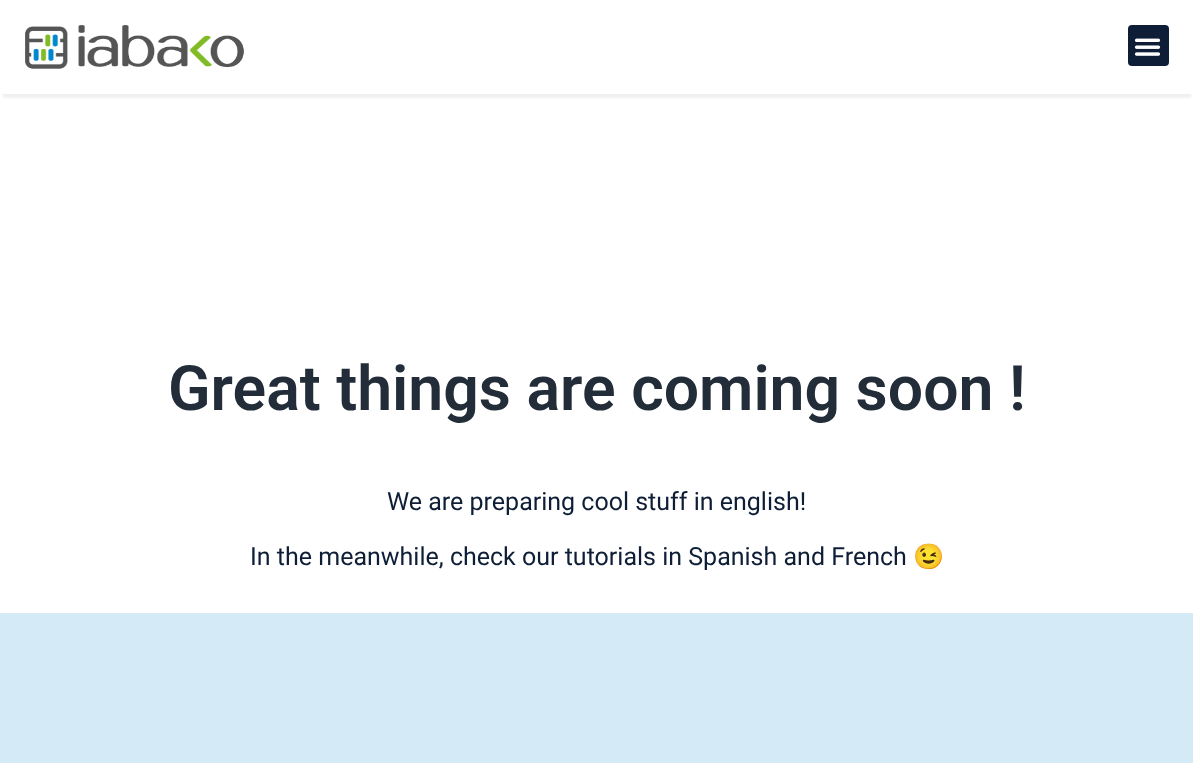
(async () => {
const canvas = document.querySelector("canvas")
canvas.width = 1193
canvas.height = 763
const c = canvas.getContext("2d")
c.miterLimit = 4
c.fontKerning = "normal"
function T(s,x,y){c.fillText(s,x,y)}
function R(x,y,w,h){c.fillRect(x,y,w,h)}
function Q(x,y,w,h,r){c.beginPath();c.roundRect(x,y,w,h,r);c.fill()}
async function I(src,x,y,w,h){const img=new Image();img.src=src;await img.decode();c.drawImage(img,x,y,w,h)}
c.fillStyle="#fff"
R(0,0,1193,763)
c.fillStyle="#eeeeeede"
c.filter="blur(1px)"
c.beginPath()
c.rect(3,9,1188,89)
c.fill()
c.filter="none"
c.fillStyle="#fff"
R(2,8,1190,86)
await I("1.png",25,25,219,44)
c.fillStyle="#0e1e37"
Q(1128,25,41,41,4)
await I("2.png",1134,38,27,18)
c.font="600 62.5px Roboto"
c.fillStyle="#222d39"
T("Great things are coming soon !",168,410)
c.font="25px Roboto"
c.fillStyle="#0e1e37"
T("We are preparing cool stuff in english!",387,510)
T("In the meanwhile, check our tutorials in Spanish and French",250,565)
c.font="25px Noto Color Emoji"
T("😉",913,565)
c.fillStyle="#d4ebf7"
R(0,613,1193,150)
})()
